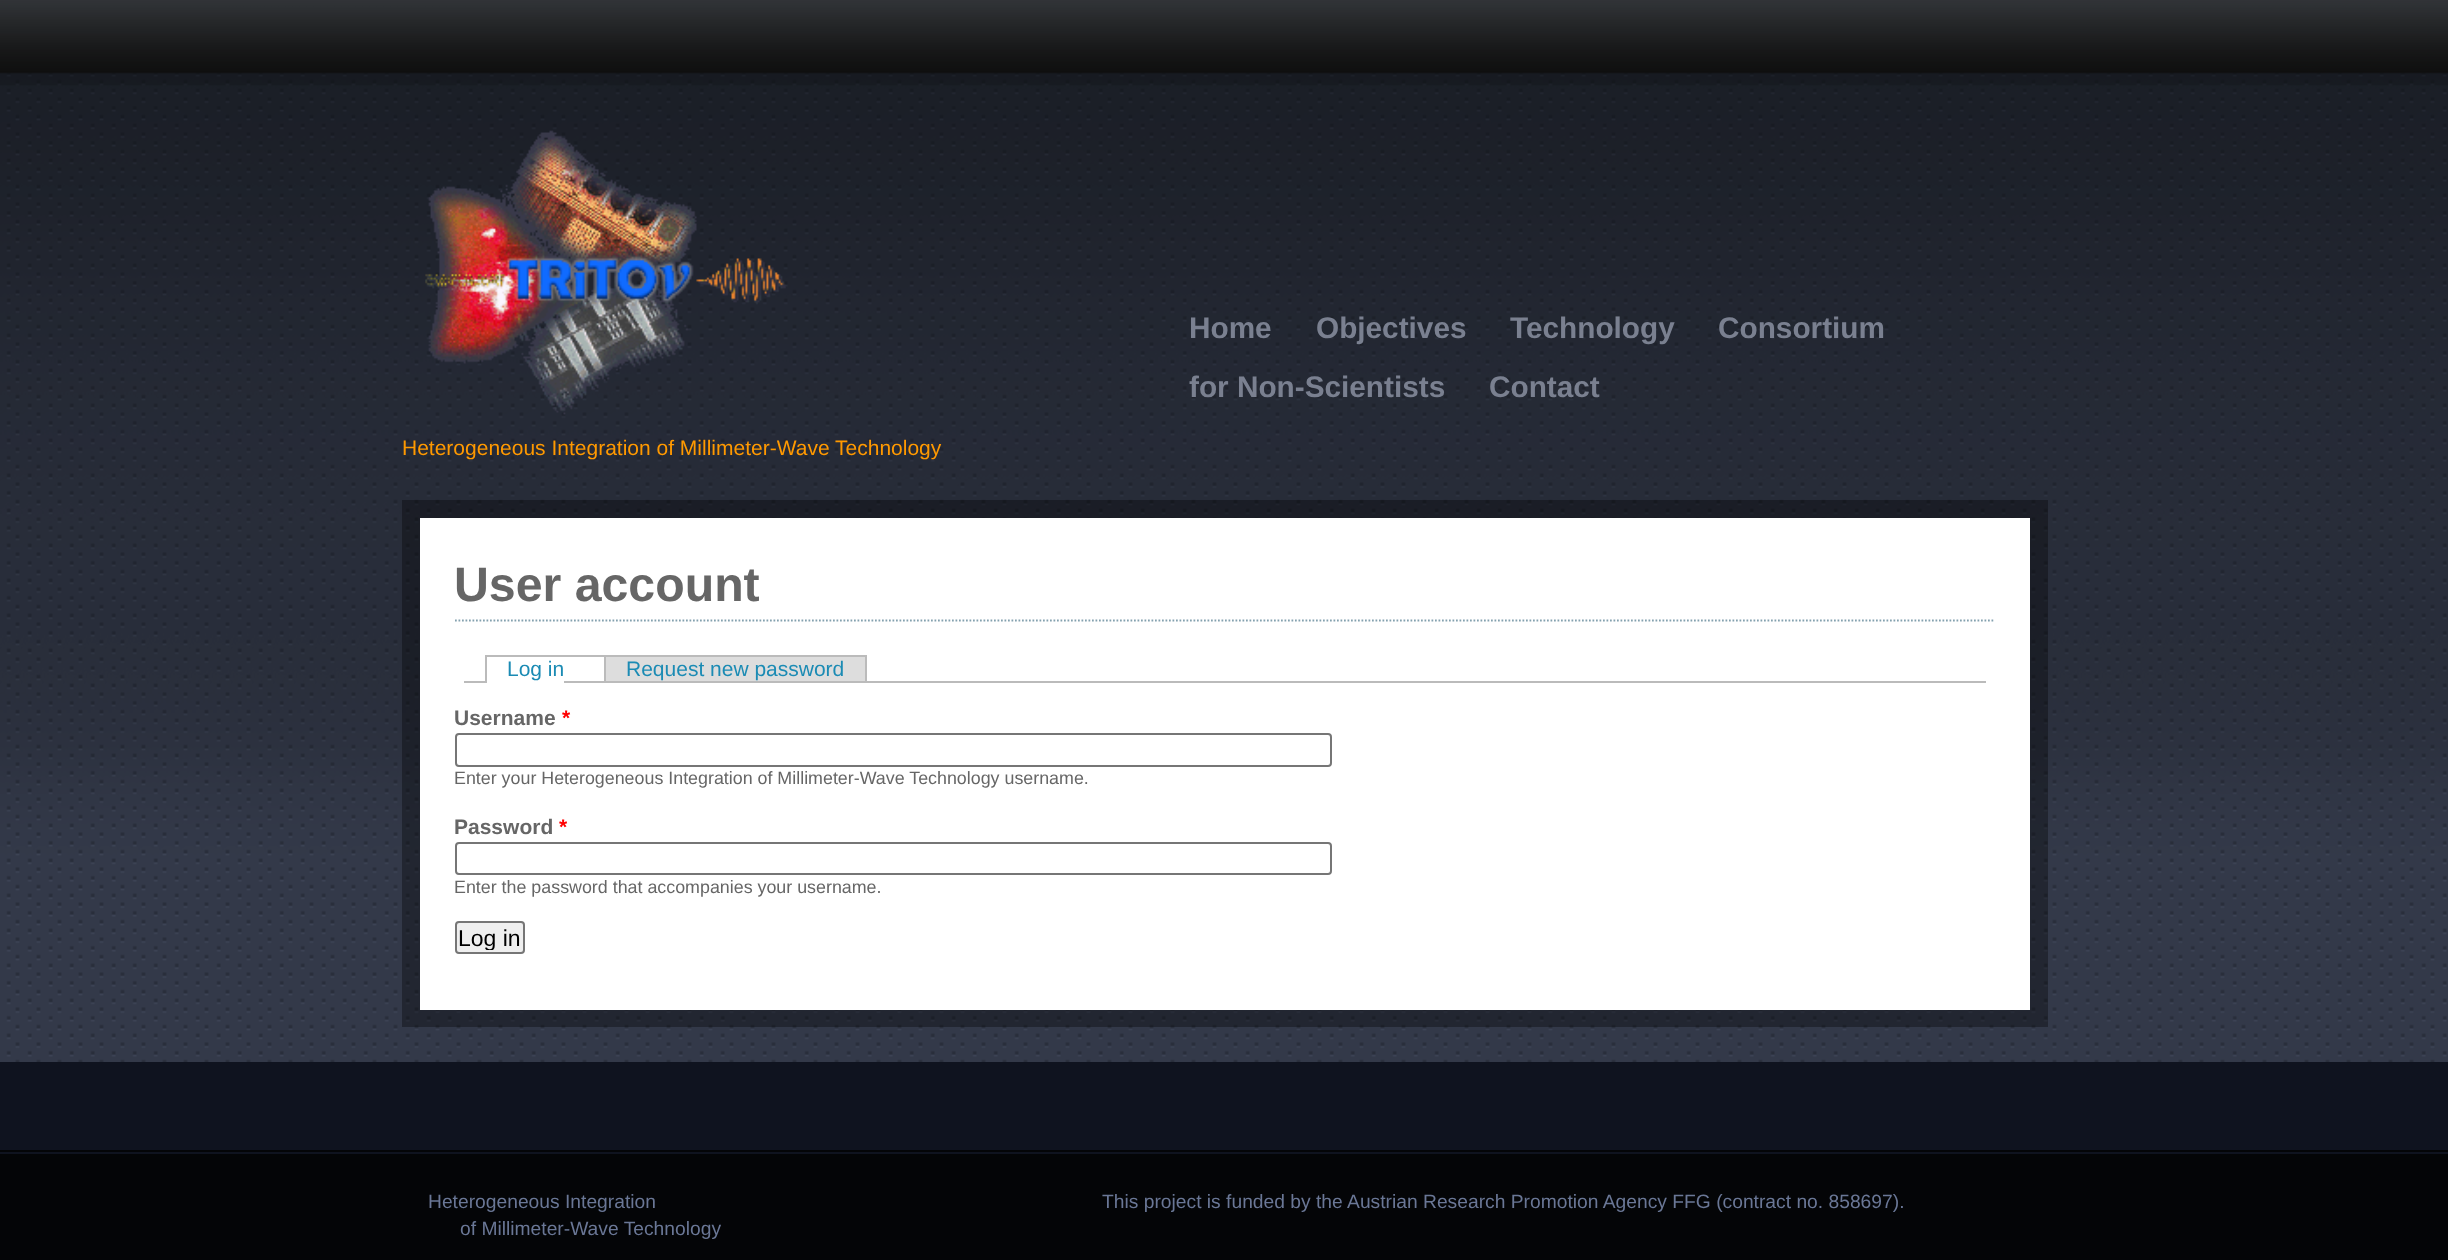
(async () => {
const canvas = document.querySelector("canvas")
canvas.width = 2448
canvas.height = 1260
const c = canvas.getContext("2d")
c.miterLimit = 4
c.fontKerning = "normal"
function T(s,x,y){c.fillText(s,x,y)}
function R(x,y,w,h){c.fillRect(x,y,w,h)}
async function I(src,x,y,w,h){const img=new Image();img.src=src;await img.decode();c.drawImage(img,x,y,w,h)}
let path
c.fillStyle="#fff"
R(0,0,2448,1260)
await I("1.png",0,0,2448,1062)
c.font="bold 29.75px Liberation Sans"
c.fillStyle="#7a8090"
T("Home",1189,338)
T("Objectives",1316,338)
T("Technology",1510,338)
T("Consortium",1718,338)
T("for Non-Scientists",1189,397)
T("Contact",1489,397)
await I("2.png",425,130,361,285)
c.font="21px Liberation Sans"
c.fillStyle="#f90"
T("Heterogeneous Integration of Millimeter-Wave Technology",402,455)
c.fillStyle="#00000052"
R(402,500,1646,527)
c.fillStyle="#fff"
R(420,518,1610,492)
path = new Path2D("M455 620.5h1540")
c.strokeStyle="#84a1af"
c.lineWidth=1.8
c.setLineDash([1.75,1.75])
c.stroke(path)
c.font="bold 48.25px Liberation Sans"
c.fillStyle="#666"
T("User account",454,601)
c.fillStyle="#bbb"
R(464,681,1522,2)
c.font="21px Liberation Sans"
c.fillStyle="#1b8bb4"
T("Log in",507,676)
c.fillStyle="#fff"
R(487,681,77,2)
c.fillStyle="#bbb"
R(485,655,381,2)
R(485,655,2,28)
c.fillStyle="#ddd"
R(606,657,259,24)
c.fillStyle="#1b8bb4"
T("Request new password",626,676)
c.fillStyle="#bbb"
R(865,655,2,26)
R(604,655,2,26)
c.font="bold 21px Liberation Sans"
c.fillStyle="#666"
T("Username",454,725)
c.fillStyle="#f00"
T("*",562,725)
c.beginPath()
c.roundRect(456,734,875,32,3)
c.strokeStyle="#767676"
c.lineWidth=2
c.setLineDash([])
c.stroke()
c.font="17.85px Liberation Sans"
c.fillStyle="#666"
T("Enter your Heterogeneous Integration of Millimeter-Wave Technology username.",454,784)
c.font="bold 21px Liberation Sans"
T("Password",454,834)
c.fillStyle="#f00"
T("*",559,834)
c.beginPath()
c.roundRect(456,843,875,31,3)
c.stroke()
c.font="17.85px Liberation Sans"
c.fillStyle="#666"
T("Enter the password that accompanies your username.",454,893)
c.fillStyle="#efefef"
c.beginPath()
c.roundRect(456,922,68,31,3)
c.fill()
c.stroke()
c.save()
c.beginPath()
c.rect(459,924,63,26)
c.clip()
c.font="23px Liberation Sans"
c.fillStyle="#000"
T("Log in",458,946)
c.restore()
c.fillStyle="#0f131f"
R(0,1062,2448,88)
c.fillStyle="#040507"
R(0,1150,2448,2)
R(0,1154,2448,106)
c.fillStyle="#0f131f"
R(0,1152,2448,2)
c.font="19.25px Liberation Sans"
c.fillStyle="#6a7796"
T("Heterogeneous Integration",428,1208)
T("of Millimeter-Wave Technology",460,1235)
T("This project is funded by the Austrian Research Promotion Agency FFG (contract no. 858697).",1102,1208)
})()
